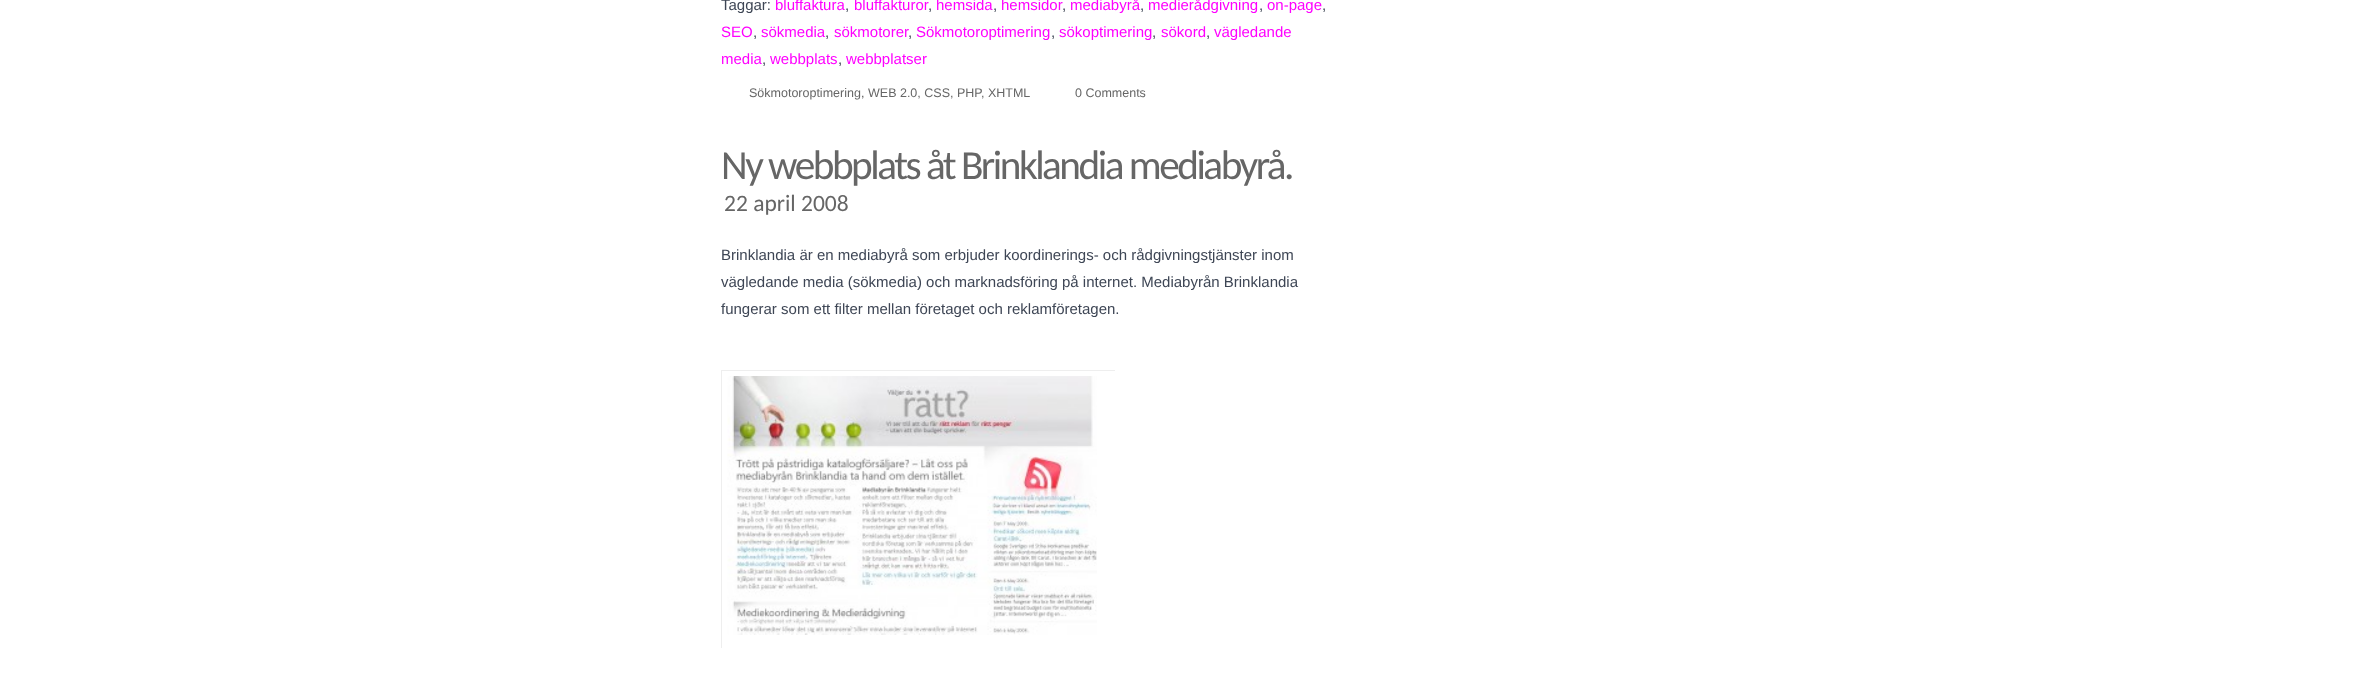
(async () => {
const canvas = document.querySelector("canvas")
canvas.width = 2369
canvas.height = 677
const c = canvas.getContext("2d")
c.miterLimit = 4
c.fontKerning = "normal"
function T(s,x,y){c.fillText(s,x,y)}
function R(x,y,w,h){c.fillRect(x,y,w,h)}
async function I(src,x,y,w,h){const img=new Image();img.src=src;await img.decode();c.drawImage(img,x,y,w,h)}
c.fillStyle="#fff"
R(0,0,2369,677)
c.font="15px Liberation Sans"
c.fillStyle="#3e4655"
T("Taggar:",721,10)
c.fillStyle="#f0f"
T("bluffaktura",775,10)
c.fillStyle="#3e4655"
T(",",845,10)
c.fillStyle="#f0f"
T("bluffakturor",854,10)
c.fillStyle="#3e4655"
T(",",928,10)
c.fillStyle="#f0f"
T("hemsida",936,10)
c.fillStyle="#3e4655"
T(",",993,10)
c.fillStyle="#f0f"
T("hemsidor",1001,10)
c.fillStyle="#3e4655"
T(",",1062,10)
c.fillStyle="#f0f"
T("mediabyrå",1070,10)
c.fillStyle="#3e4655"
T(",",1140,10)
c.fillStyle="#f0f"
T("medierådgivning",1148,10)
c.fillStyle="#3e4655"
T(",",1259,10)
c.fillStyle="#f0f"
T("on-page",1267,10)
c.fillStyle="#3e4655"
T(",",1322,10)
c.fillStyle="#f0f"
T("SEO",721,37)
c.fillStyle="#3e4655"
T(",",753,37)
c.fillStyle="#f0f"
T("sökmedia",761,37)
c.fillStyle="#3e4655"
T(",",825,37)
c.fillStyle="#f0f"
T("sökmotorer",834,37)
c.fillStyle="#3e4655"
T(",",908,37)
c.fillStyle="#f0f"
T("Sökmotoroptimering",916,37)
c.fillStyle="#3e4655"
T(",",1051,37)
c.fillStyle="#f0f"
T("sökoptimering",1059,37)
c.fillStyle="#3e4655"
T(",",1152,37)
c.fillStyle="#f0f"
T("sökord",1161,37)
c.fillStyle="#3e4655"
T(",",1206,37)
c.fillStyle="#f0f"
T("vägledande",1214,37)
T("media",721,64)
c.fillStyle="#3e4655"
T(",",762,64)
c.fillStyle="#f0f"
T("webbplats",770,64)
c.fillStyle="#3e4655"
T(",",838,64)
c.fillStyle="#f0f"
T("webbplatser",846,64)
c.font="12.5px Liberation Sans"
c.fillStyle="#666"
T("Sökmotoroptimering",749,97)
c.fillStyle="#565656"
T(",",861,97)
c.fillStyle="#666"
T("WEB 2.0, CSS, PHP, XHTML",868,97)
T("0 Comments",1075,97)
c.letterSpacing="-2.5px"
c.font="41.25px Carlito"
T("Ny webbplats åt Brinklandia mediabyrå.",721,179)
c.letterSpacing="0px"
c.font="23.5px Carlito"
T("22 april 2008",724,211)
c.font="15px Liberation Sans"
c.fillStyle="#3e4655"
T("Brinklandia är en mediabyrå som erbjuder koordinerings- och rådgivningstjänster inom",721,260)
T("vägledande media (sökmedia) och marknadsföring på internet. Mediabyrån Brinklandia",721,287)
T("fungerar som ett filter mellan företaget och reklamföretagen.",721,314)
c.fillStyle="#eee"
R(721,370,394,1)
R(721,370,1,278)
await I("1.png",727,376,370,259)
})()
